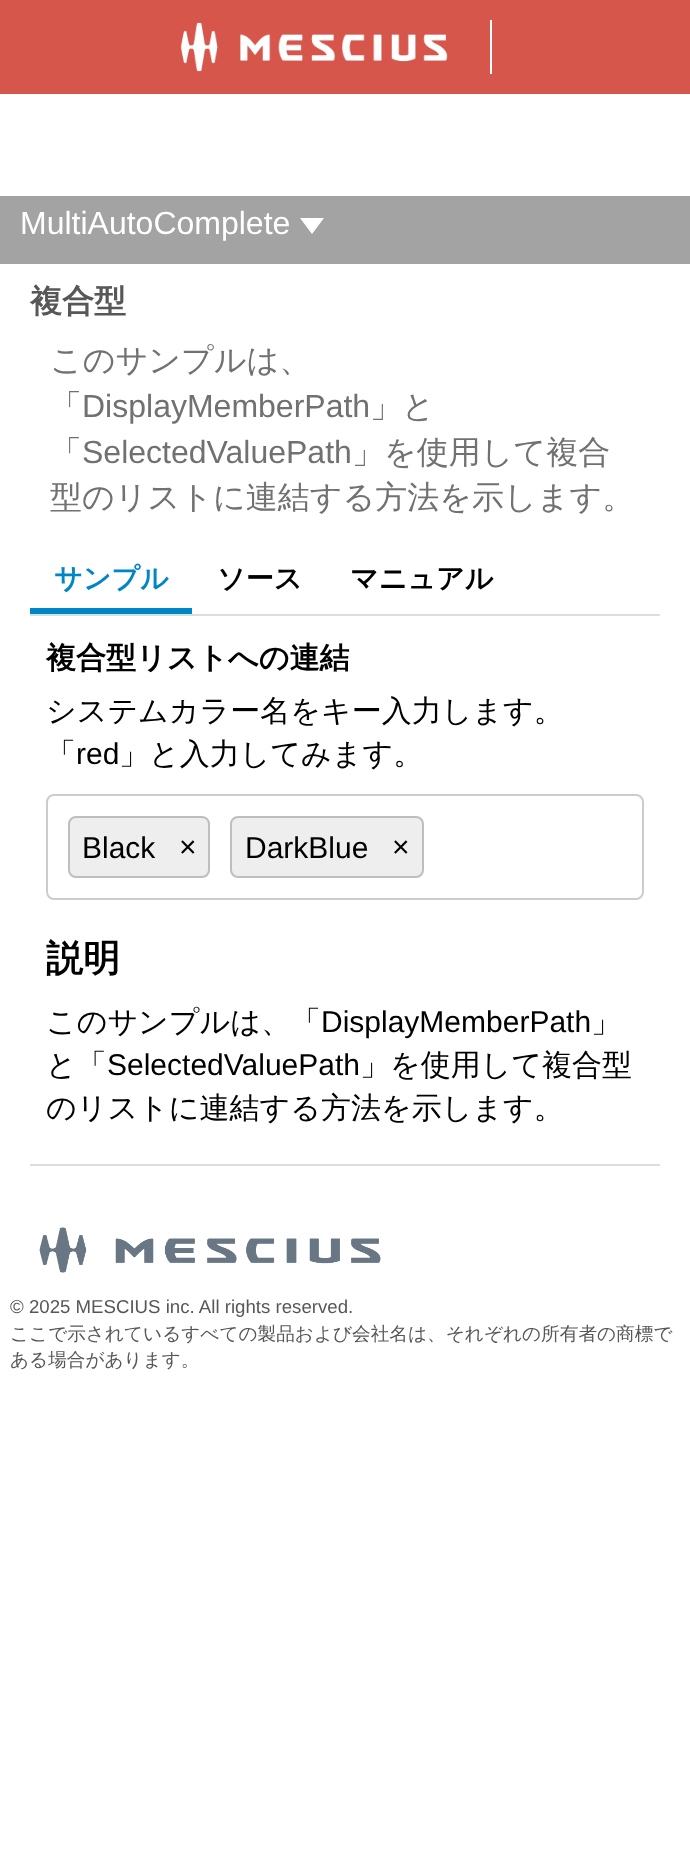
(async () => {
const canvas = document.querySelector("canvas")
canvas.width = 690
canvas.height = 1860
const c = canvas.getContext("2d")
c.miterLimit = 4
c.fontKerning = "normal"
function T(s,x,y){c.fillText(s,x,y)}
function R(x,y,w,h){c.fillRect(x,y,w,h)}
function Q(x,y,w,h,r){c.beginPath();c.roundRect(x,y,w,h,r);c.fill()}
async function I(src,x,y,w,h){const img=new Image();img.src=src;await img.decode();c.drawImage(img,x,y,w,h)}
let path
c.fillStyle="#fff"
R(0,0,690,1860)
c.fillStyle="#d6564c"
R(0,0,690,94)
await I("1.png",180,22,268,50)
c.fillStyle="#fff"
R(490,20,2,54)
c.fillStyle="#a2a3a2"
R(0,196,690,68)
c.font="32px Liberation Sans"
c.fillStyle="#fff"
T("MultiAutoComplete",20,234)
path = new Path2D("M300 218h24l-12 16z")
c.fill(path)
c.font="bold 32px WenQuanYi Zen Hei"
c.fillStyle="#575757"
T("複合型",30,312)
c.font="500 32px WenQuanYi Zen Hei"
c.fillStyle="#717171"
T("このサンプルは、",50,371)
T("「",50,417)
c.font="32px Liberation Sans"
T("DisplayMemberPath",82,417)
c.font="500 32px WenQuanYi Zen Hei"
T("」と",370,417)
T("「",50,463)
c.font="32px Liberation Sans"
T("SelectedValuePath",82,463)
c.font="500 32px WenQuanYi Zen Hei"
T("」を使用して複合",352,463)
T("型のリストに連結する方法を示します。",50,508)
c.fillStyle="#ddd"
R(30,1164,630,2)
c.font="bold 28px WenQuanYi Zen Hei"
c.fillStyle="#0085c7"
T("サンプル",54,588)
R(30,608,162,6)
c.fillStyle="#000"
T("ソース",217,588)
T("マニュアル",350,588)
c.fillStyle="#ddd"
R(30,614,630,2)
c.font="bold 30px WenQuanYi Zen Hei"
c.fillStyle="#000"
T("複合型リストへの連結",46,668)
c.font="500 30px WenQuanYi Zen Hei"
T("システムカラー名をキー入力します。",46,721)
T("「",46,764)
c.font="30px Liberation Sans"
T("red",76,764)
c.font="500 30px WenQuanYi Zen Hei"
T("」と入力してみます。",119,764)
c.beginPath()
c.roundRect(47,795,596,104,7)
c.strokeStyle="#ccc"
c.lineWidth=2
c.stroke()
c.fillStyle="#eee"
Q(68,816,142,62,8)
c.beginPath()
c.roundRect(69,817,140,60,7)
c.strokeStyle="#00000033"
c.stroke()
c.font="30px Liberation Sans"
c.fillStyle="#000"
T("Black",82,858)
T("×",179,857)
c.fillStyle="#eee"
Q(230,816,194,62,8)
c.beginPath()
c.roundRect(231,817,192,60,7)
c.stroke()
c.fillStyle="#000"
T("DarkBlue",245,858)
T("×",392,857)
c.font="bold 37px WenQuanYi Zen Hei"
T("説明",46,971)
c.font="500 30px WenQuanYi Zen Hei"
T("このサンプルは、「",46,1032)
c.font="30px Liberation Sans"
T("DisplayMemberPath",321,1032)
c.font="500 30px WenQuanYi Zen Hei"
T("」",591,1032)
T("と「",46,1075)
c.font="30px Liberation Sans"
T("SelectedValuePath",107,1075)
c.font="500 30px WenQuanYi Zen Hei"
T("」を使用して複合型",360,1075)
T("のリストに連結する方法を示します。",46,1118)
await I("2.png",39,1227,342,46)
c.font="18.65px Liberation Sans"
c.fillStyle="#575757"
T("© 2025 MESCIUS inc. All rights reserved.",10,1313)
c.font="500 18.65px WenQuanYi Zen Hei"
T("ここで示されているすべての製品および会社名は、それぞれの所有者の商標で",10,1340)
T("ある場合があります。",10,1366)
})()
